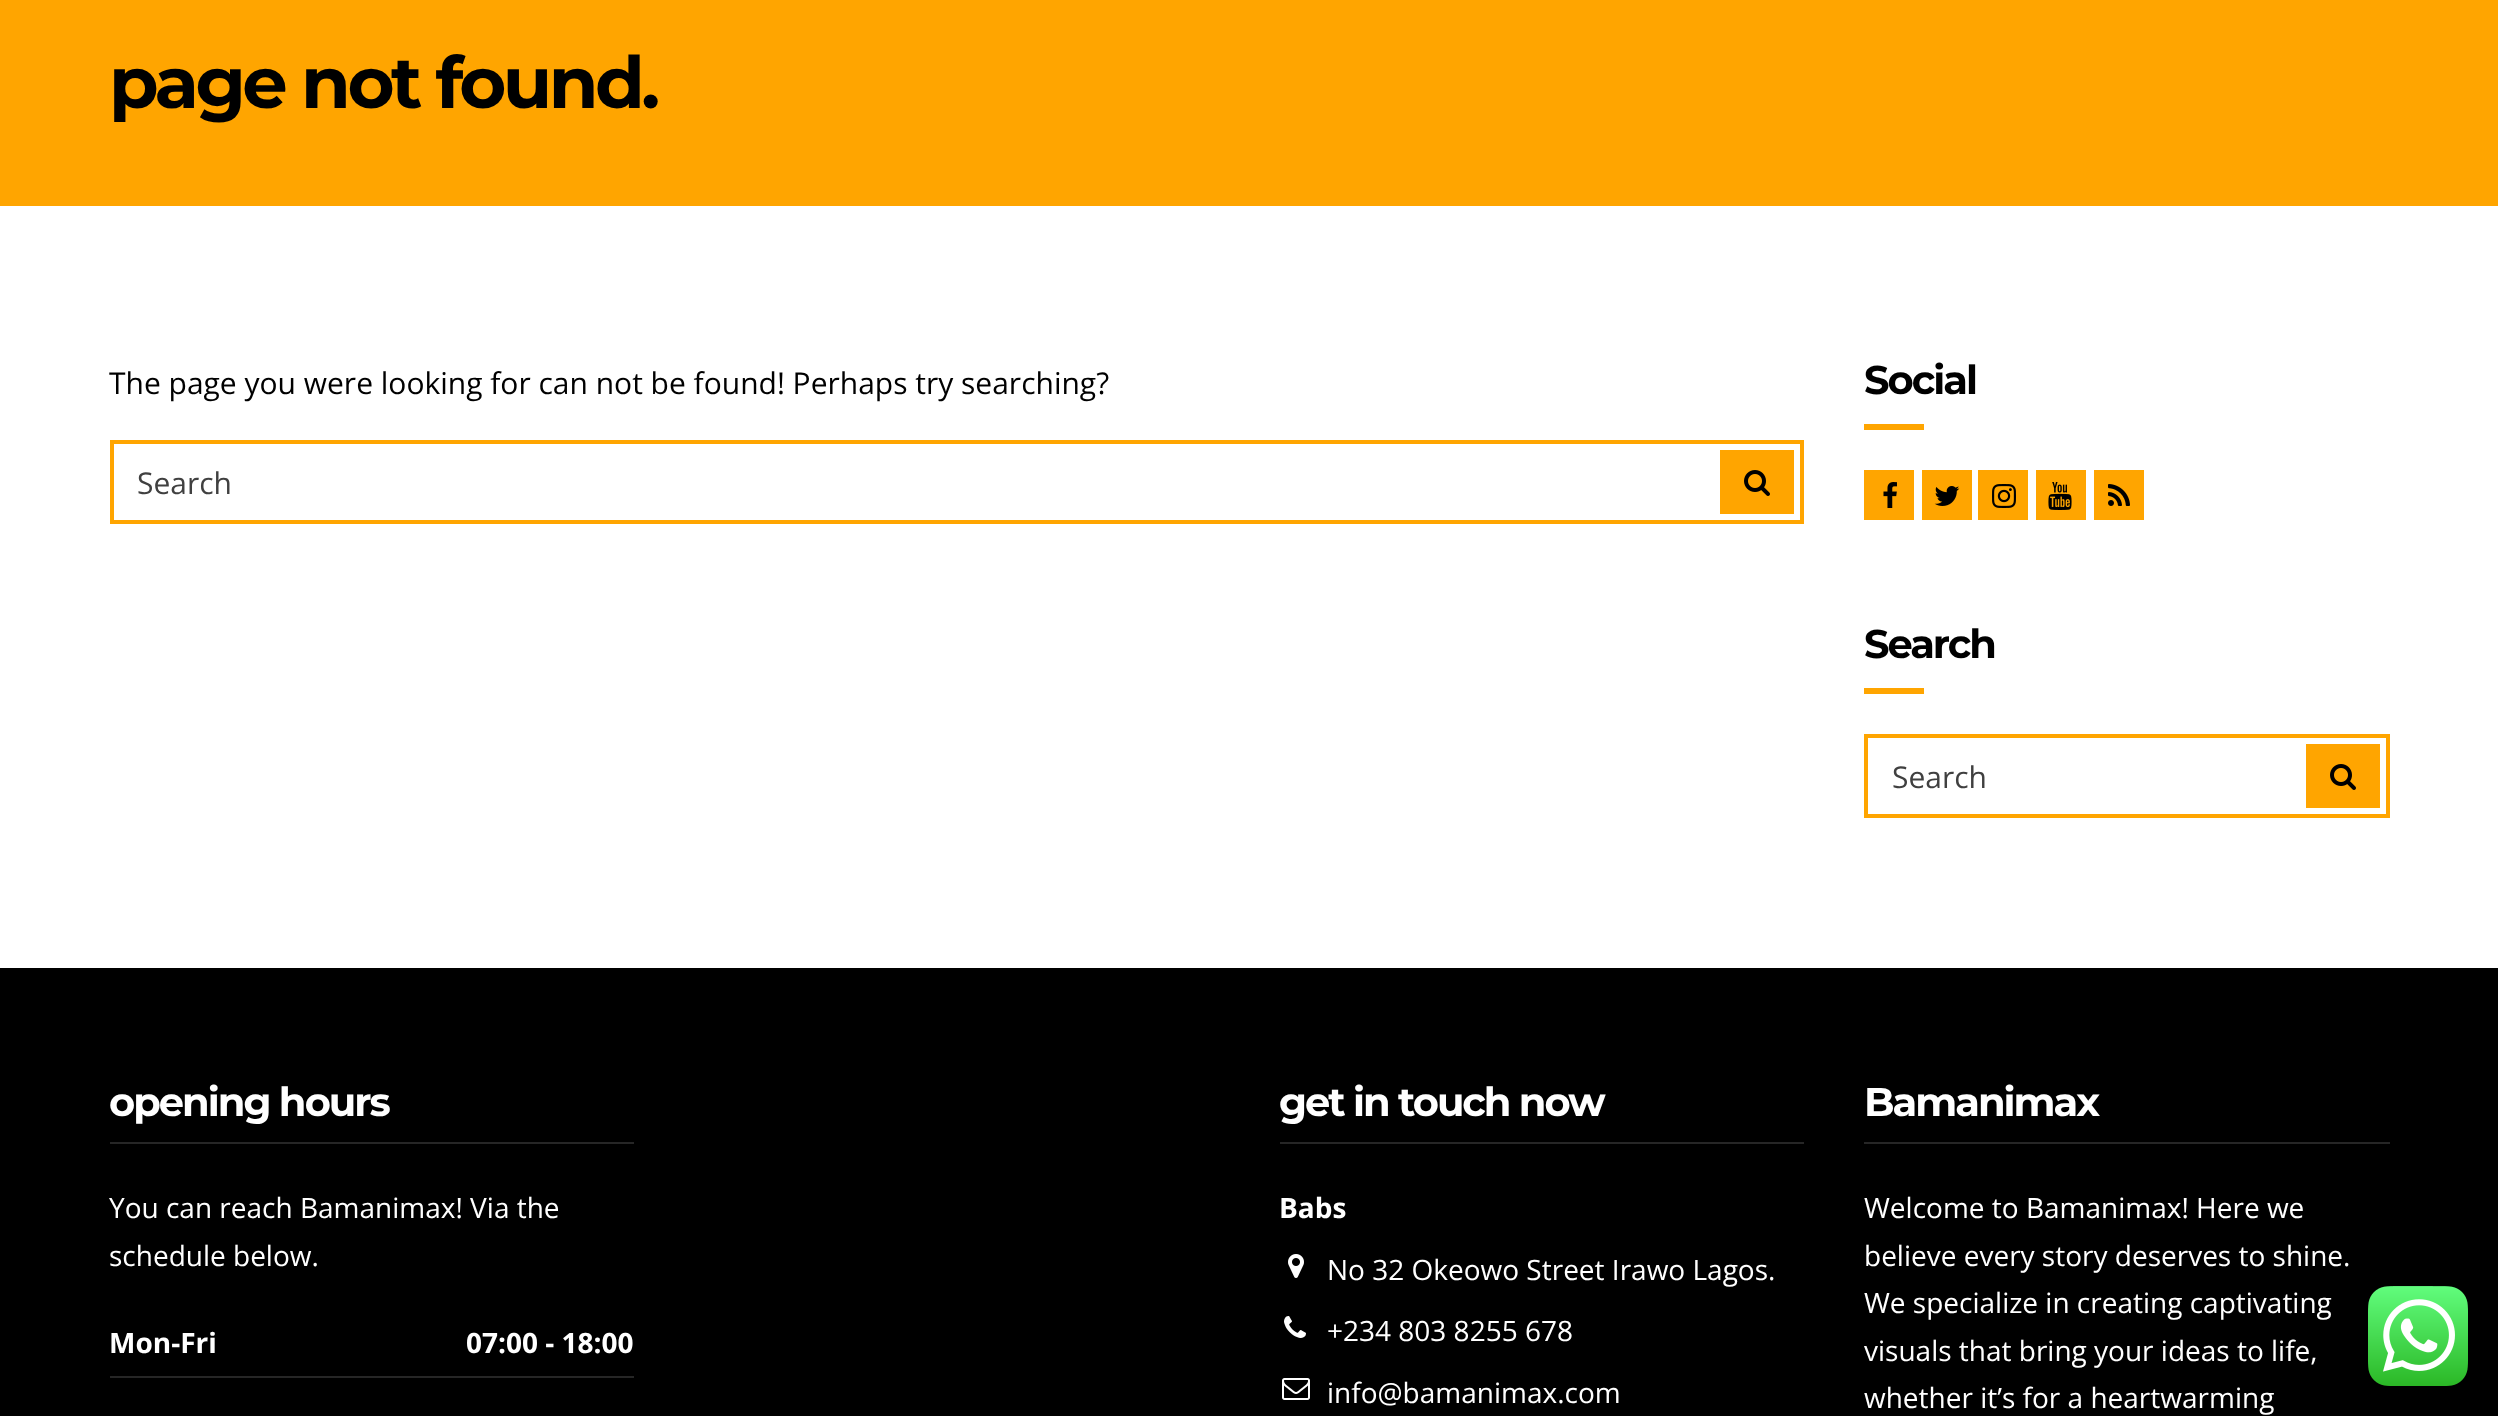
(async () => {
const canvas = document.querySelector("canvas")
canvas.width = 2498
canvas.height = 1416
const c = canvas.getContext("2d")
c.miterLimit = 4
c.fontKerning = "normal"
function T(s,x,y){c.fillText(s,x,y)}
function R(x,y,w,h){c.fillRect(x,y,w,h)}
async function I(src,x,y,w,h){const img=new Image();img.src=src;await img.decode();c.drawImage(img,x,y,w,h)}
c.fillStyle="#fff"
R(0,0,2498,1416)
c.fillStyle="#ffa500"
R(0,0,2498,206)
c.letterSpacing="-3.6px"
c.font="bold 72px Montserrat"
c.fillStyle="#000"
T("page not found.",109,108)
c.letterSpacing="0px"
c.font="30px Open Sans"
T("The page you were looking for can not be found! Perhaps try searching?",109,394)
c.strokeStyle="#ffa500"
c.lineWidth=4
c.strokeRect(112,442,1690,80)
c.fillStyle="#404040"
T("Search",137,494)
c.fillStyle="#ffa500"
R(1720,450,74,64)
await I("1.png",1744,470,26,26)
c.letterSpacing="-2px"
c.font="bold 40px Montserrat"
c.fillStyle="#000"
T("Social",1864,394)
c.fillStyle="#ffa500"
R(1864,424,60,6)
R(1864,470,50,50)
await I("2.png",1883,482,14,26)
R(1922,470,50,50)
await I("3.png",1934,486,26,20)
R(1978,470,50,50)
await I("4.png",1992,484,24,24)
R(2036,470,50,50)
await I("5.png",2048,482,24,28)
R(2094,470,50,50)
await I("6.png",2108,484,22,22)
c.fillStyle="#000"
T("Search",1864,658)
c.fillStyle="#ffa500"
R(1864,688,60,6)
c.strokeRect(1866,736,522,80)
c.letterSpacing="0px"
c.font="30px Open Sans"
c.fillStyle="#404040"
T("Search",1892,788)
c.fillStyle="#ffa500"
R(2306,744,74,64)
await I("1.png",2330,764,26,26)
c.fillStyle="#000"
R(0,968,2498,448)
c.fillStyle="#262626"
R(110,1142,524,2)
c.letterSpacing="-2px"
c.font="bold 40px Montserrat"
c.fillStyle="#fff"
T("opening hours",109,1116)
c.letterSpacing="0px"
c.font="28px Open Sans"
T("You can reach Bamanimax! Via the",109,1218)
T("schedule below.",109,1266)
c.fillStyle="#262626"
R(110,1376,524,2)
c.font="bold 28px Open Sans"
c.fillStyle="#fff"
T("Mon-Fri",109,1353)
T("07:00 - 18:00",466,1353)
c.fillStyle="#262626"
R(1280,1142,524,2)
c.letterSpacing="-2px"
c.font="bold 40px Montserrat"
c.fillStyle="#fff"
T("get in touch now",1279,1116)
c.letterSpacing="0px"
c.font="bold 28px Open Sans"
T("Babs",1279,1218)
await I("7.png",1288,1254,16,24)
c.font="28px Open Sans"
T("No 32 Okeowo Street Irawo Lagos.",1327,1280)
await I("8.png",1284,1316,22,22)
T("+234 803 8255 678",1327,1341)
await I("9.png",1282,1378,28,22)
T("info@bamanimax.com",1327,1403)
c.fillStyle="#262626"
R(1864,1142,526,2)
c.letterSpacing="-2px"
c.font="bold 40px Montserrat"
c.fillStyle="#fff"
T("Bamanimax",1864,1116)
c.letterSpacing="0px"
c.font="28px Open Sans"
T("Welcome to Bamanimax! Here we",1864,1218)
T("believe every story deserves to shine.",1864,1266)
T("We specialize in creating captivating",1864,1313)
T("visuals that bring your ideas to life,",1864,1361)
T("whether it’s for a heartwarming",1864,1408)
await I("10.png",2368,1286,100,100)
})()
